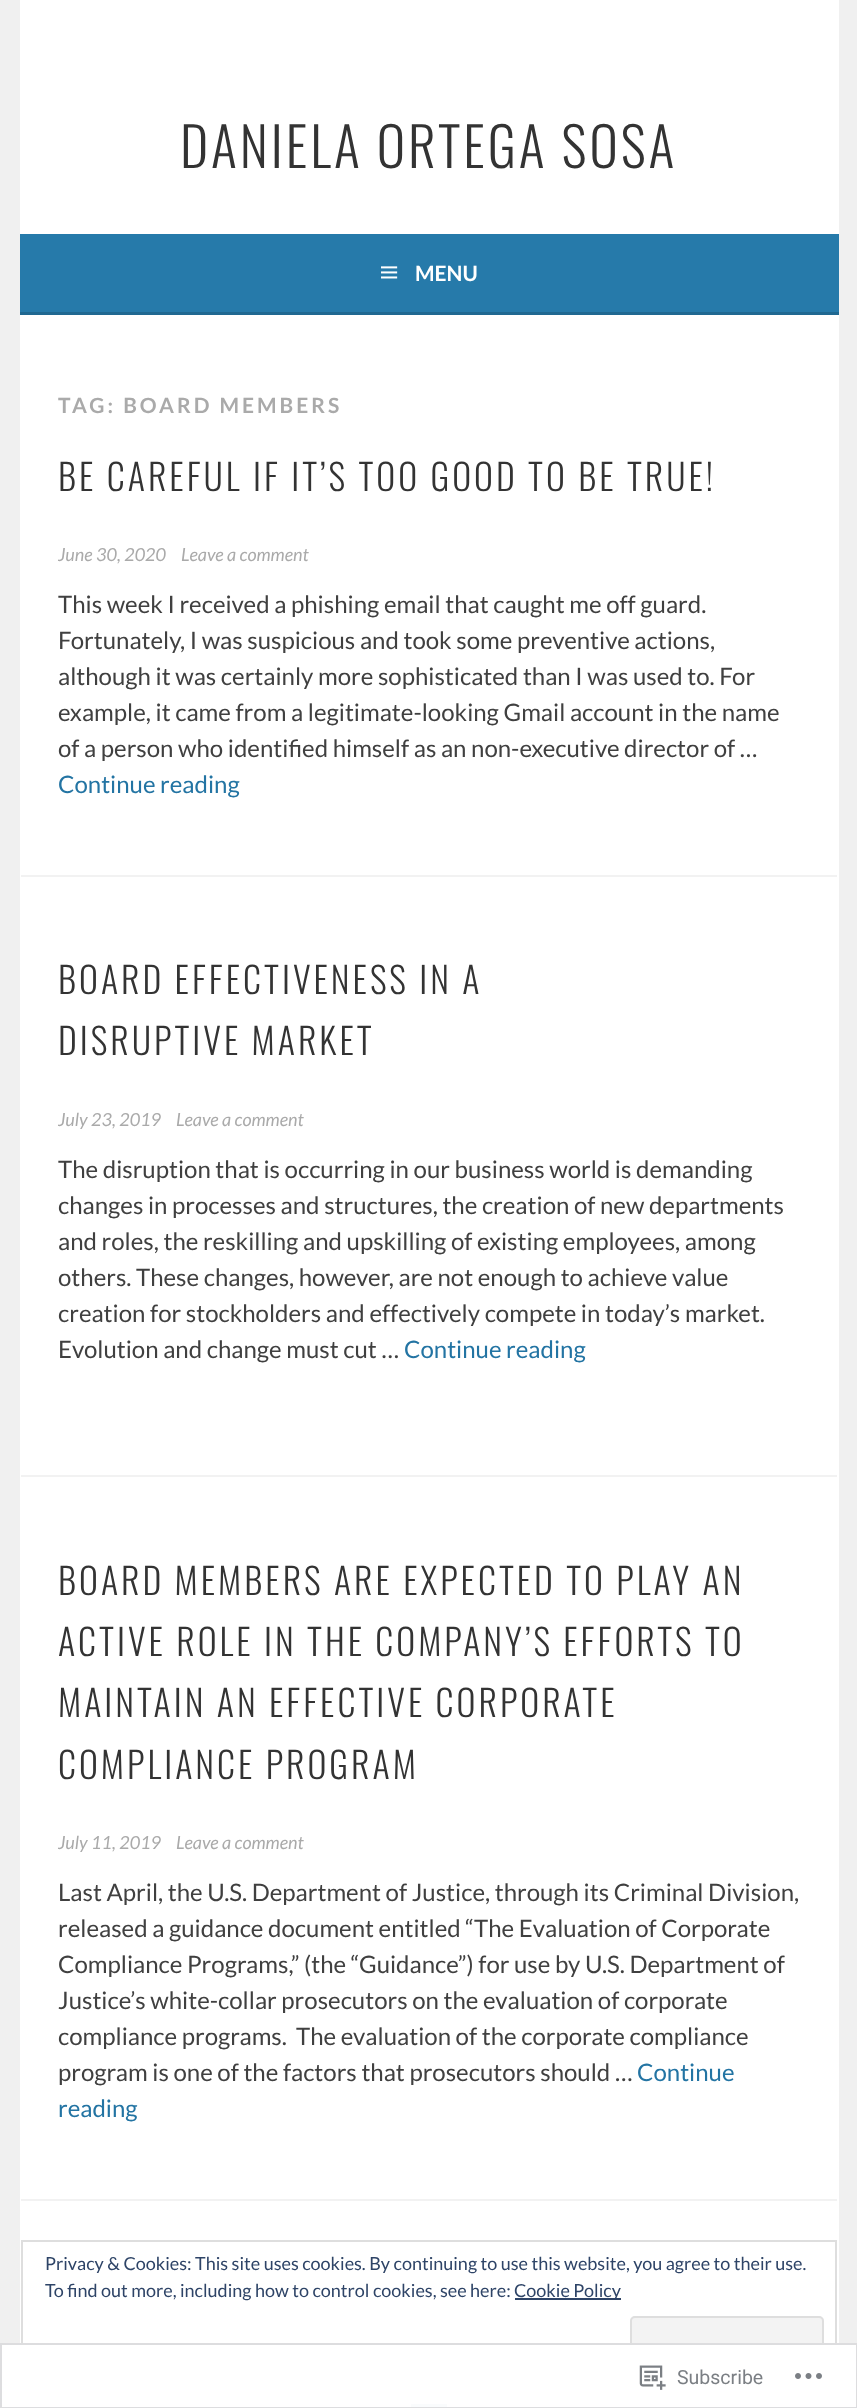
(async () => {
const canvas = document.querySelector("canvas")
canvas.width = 857
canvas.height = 2408
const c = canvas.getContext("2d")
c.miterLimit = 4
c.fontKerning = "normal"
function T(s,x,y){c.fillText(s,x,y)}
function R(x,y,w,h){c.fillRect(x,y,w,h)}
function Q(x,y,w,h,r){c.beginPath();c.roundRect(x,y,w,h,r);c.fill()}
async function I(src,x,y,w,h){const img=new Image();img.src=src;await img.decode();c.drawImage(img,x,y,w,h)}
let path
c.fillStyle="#f0f0f0"
R(0,0,857,2408)
c.fillStyle="#fff"
R(20,0,819,234)
c.letterSpacing="3px"
c.font="300 54px Oswald"
c.fillStyle="#333"
T("DANIELA ORTEGA SOSA",180,168)
c.fillStyle="#267aaa"
R(20,234,819,78)
c.fillStyle="#206891"
R(20,312,819,3)
await I("1.png",381,266,17,13)
c.letterSpacing="0px"
c.font="bold 21px Lato"
c.fillStyle="#fff"
T("MENU",415,281)
R(20,315,819,2093)
c.letterSpacing="3px"
c.fillStyle="#aaa"
T("TAG: BOARD MEMBERS",58,413)
c.font="300 36px Oswald"
c.fillStyle="#333"
T("BE CAREFUL IF IT’S TOO GOOD TO BE TRUE!",58,491)
c.letterSpacing="0px"
c.font="italic 18px Lato"
c.fillStyle="#aaa"
T("June 30, 2020",58,561)
T("Leave a comment",181,561)
c.font="24px Lato"
c.fillStyle="#404040"
T("This week I received a phishing email that caught me off guard.",58,613)
T("Fortunately, I was suspicious and took some preventive actions,",58,649)
T("although it was certainly more sophisticated than I was used to. For",58,685)
T("example, it came from a legitimate-looking Gmail account in the name",58,721)
T("of a person who identified himself as an non-executive director of …",58,757)
c.fillStyle="#2374a3"
T("Continue reading",58,793)
c.fillStyle="#f2f2f2"
R(21,875,816,2)
c.letterSpacing="3px"
c.font="300 36px Oswald"
c.fillStyle="#333"
T("BOARD EFFECTIVENESS IN A",58,994)
T("DISRUPTIVE MARKET",58,1055)
c.letterSpacing="0px"
c.font="italic 18px Lato"
c.fillStyle="#aaa"
T("July 23, 2019",58,1126)
T("Leave a comment",176,1126)
c.font="24px Lato"
c.fillStyle="#404040"
T("The disruption that is occurring in our business world is demanding",58,1178)
T("changes in processes and structures, the creation of new departments",58,1214)
T("and roles, the reskilling and upskilling of existing employees, among",58,1250)
T("others. These changes, however, are not enough to achieve value",58,1286)
T("creation for stockholders and effectively compete in today’s market.",58,1322)
T("Evolution and change must cut …",58,1358)
c.fillStyle="#2374a3"
T("Continue reading",404,1358)
c.fillStyle="#f2f2f2"
R(21,1475,816,2)
c.letterSpacing="3px"
c.font="300 36px Oswald"
c.fillStyle="#333"
T("BOARD MEMBERS ARE EXPECTED TO PLAY AN",58,1595)
T("ACTIVE ROLE IN THE COMPANY’S EFFORTS TO",58,1656)
T("MAINTAIN AN EFFECTIVE CORPORATE",58,1717)
T("COMPLIANCE PROGRAM",58,1779)
c.letterSpacing="0px"
c.font="italic 18px Lato"
c.fillStyle="#aaa"
T("July 11, 2019",58,1849)
T("Leave a comment",176,1849)
c.font="24px Lato"
c.fillStyle="#404040"
T("Last April, the U.S. Department of Justice, through its Criminal Division,",58,1901)
T("released a guidance document entitled “The Evaluation of Corporate",58,1937)
T("Compliance Programs,” (the “Guidance”) for use by U.S. Department of",58,1973)
T("Justice’s white-collar prosecutors on the evaluation of corporate",58,2009)
T("compliance programs.  The evaluation of the corporate compliance",58,2045)
T("program is one of the factors that prosecutors should …",58,2081)
c.fillStyle="#2374a3"
T("Continue",637,2081)
T("reading",58,2117)
c.fillStyle="#f2f2f2"
R(21,2199,816,2)
c.fillStyle="#2374a3"
R(411,2404,36,4)
c.strokeStyle="#dedede"
c.lineWidth=2
c.strokeRect(22,2241,814,146)
c.font="18px Lato"
c.fillStyle="#2e4467"
T("Privacy & Cookies: This site uses cookies. By continuing to use this website, you agree to their use.",45,2270)
T("To find out more, including how to control cookies, see here:",45,2297)
R(515,2298,106,2)
T("Cookie Policy",514,2297)
c.fillStyle="#f3f3f3"
Q(630,2316,194,59,5)
c.fillStyle="#dbdbdb"
path = new Path2D("M632 2367v3c0 2 1 3 3 3h184c2 0 3-1 3-3v-3c0 2-1 3-3 3h-186v-1z")
c.fill(path)
c.beginPath()
c.roundRect(631,2317,192,57,4)
c.stroke()
c.fillStyle="#fffffffa"
R(0,2343,857,65)
c.strokeStyle="#dcdcdefa"
c.strokeRect(1,2344,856,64)
await I("2.png",639,2365,27,25)
c.font="19.5px Roboto"
c.fillStyle="#7b7f84"
T("Subscribe",677,2384)
await I("3.png",795,2373,27,6)
})()
